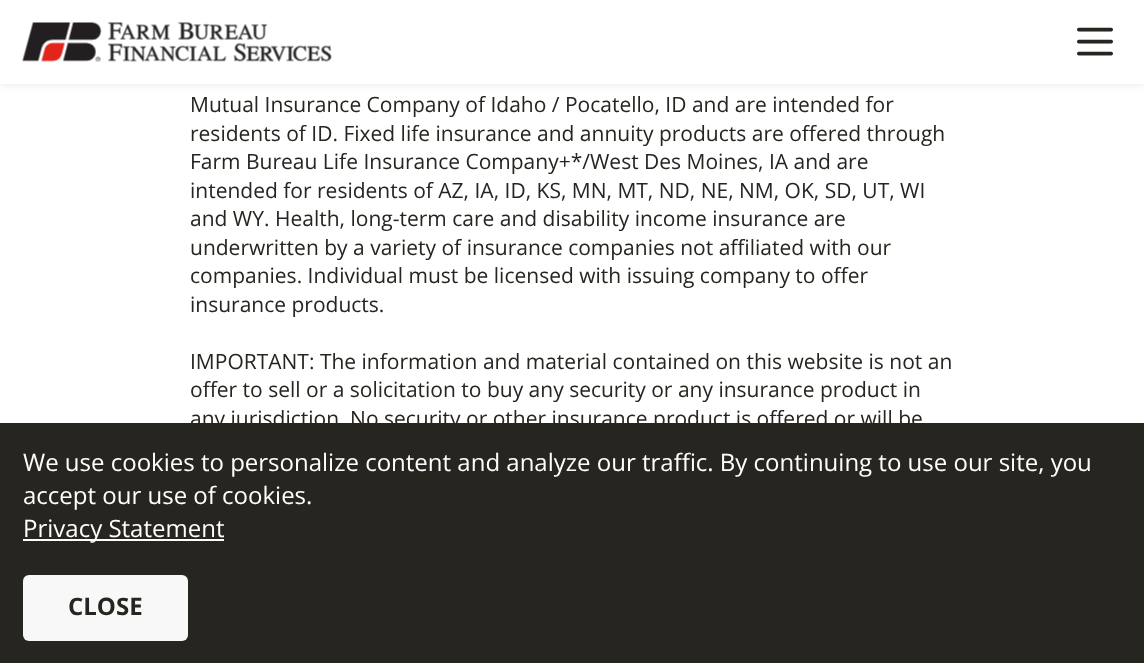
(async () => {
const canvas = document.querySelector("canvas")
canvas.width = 1144
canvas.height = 663
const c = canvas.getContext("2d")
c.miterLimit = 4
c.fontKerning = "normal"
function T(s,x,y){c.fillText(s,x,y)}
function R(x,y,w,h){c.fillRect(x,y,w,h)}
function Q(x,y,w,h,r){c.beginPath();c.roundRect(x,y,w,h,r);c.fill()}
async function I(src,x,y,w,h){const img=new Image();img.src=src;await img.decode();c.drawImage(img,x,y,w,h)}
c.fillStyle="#fff"
R(0,0,1144,663)
c.font="21px Open Sans"
c.fillStyle="#27251f"
T("Mutual Insurance Company of Idaho / Pocatello, ID and are intended for",190,112)
T("residents of ID. Fixed life insurance and annuity products are offered through",190,141)
T("Farm Bureau Life Insurance Company+*/West Des Moines, IA and are",190,169)
T("intended for residents of AZ, IA, ID, KS, MN, MT, ND, NE, NM, OK, SD, UT, WI",190,198)
T("and WY. Health, long-term care and disability income insurance are",190,226)
T("underwritten by a variety of insurance companies not affiliated with our",190,255)
T("companies. Individual must be licensed with issuing company to offer",190,283)
T("insurance products.",190,312)
T("IMPORTANT: The information and material contained on this website is not an",190,369)
T("offer to sell or a solicitation to buy any security or any insurance product in",190,397)
T("any jurisdiction. No security or other insurance product is offered or will be",190,426)
c.fillStyle="#0000000d"
c.filter="blur(3px)"
c.beginPath()
c.rect(0,3,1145,84)
c.fill()
c.filter="none"
c.fillStyle="#fff"
R(0,0,1144,84)
await I("1.png",22,22,310,40)
await I("2.png",1077,27,36,29)
c.fillStyle="#27251f"
R(0,423,1144,240)
c.font="24px Open Sans"
c.fillStyle="#fff"
T("We use cookies to personalize content and analyze our traffic. By continuing to use our site, you",23,471)
T("accept our use of cookies.",23,504)
R(23,539,201,2)
T("Privacy Statement",23,537)
c.fillStyle="#f8f8f8"
Q(23,575,165,66,6)
c.font="bold 24px Open Sans"
c.fillStyle="#27251f"
T("CLOSE",68,615)
})()
